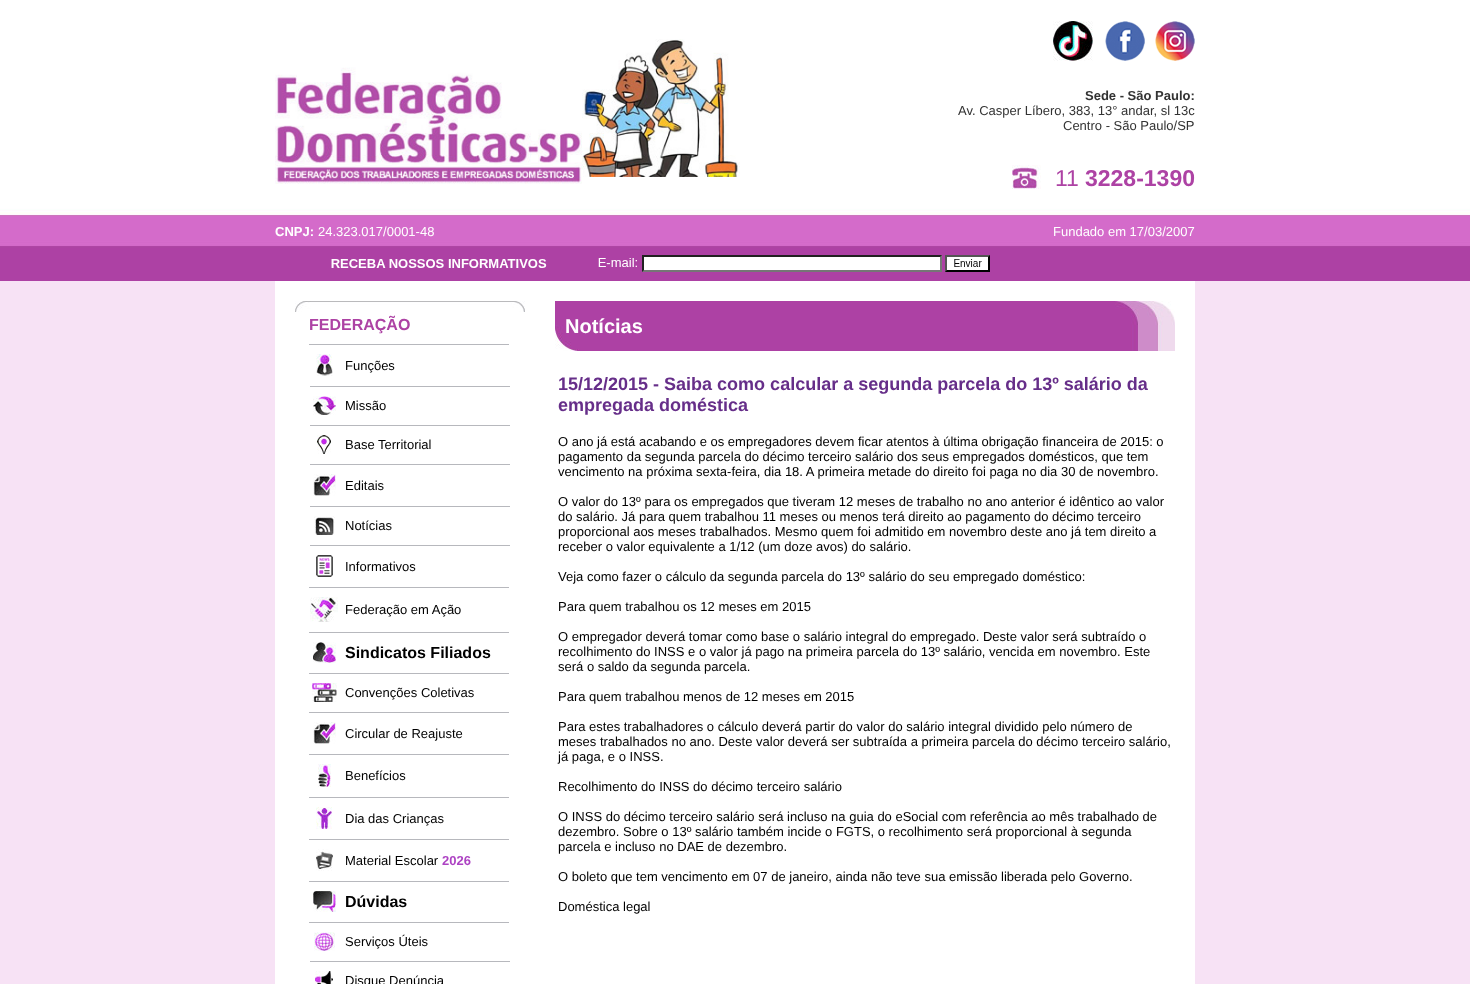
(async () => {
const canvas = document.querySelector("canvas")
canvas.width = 1470
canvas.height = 984
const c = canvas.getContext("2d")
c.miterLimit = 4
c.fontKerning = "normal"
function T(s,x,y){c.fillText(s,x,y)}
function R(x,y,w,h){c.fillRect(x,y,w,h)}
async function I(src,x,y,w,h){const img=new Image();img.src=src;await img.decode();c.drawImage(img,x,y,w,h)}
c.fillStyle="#f7e2f5"
R(0,0,1470,984)
await I("1.png",0,0,1470,281)
await I("2.png",275,39,465,145)
await I("3.png",1053,21,40,40)
await I("4.png",1105,21,40,40)
await I("5.png",1155,21,40,40)
c.font="bold 13px Liberation Sans"
c.fillStyle="#333"
T("Sede - São Paulo:",1085,100)
c.font="13px Liberation Sans"
T("Av. Casper Líbero, 383, 13° andar, sl 13c",958,115)
T("Centro - São Paulo/SP",1063,130)
await I("6.png",1012,165,29,24)
c.font="23px Liberation Sans"
c.fillStyle="#ad42a4"
T("11",1055,186)
c.font="bold 23px Liberation Sans"
T("3228-1390",1085,186)
c.font="bold 13px Liberation Sans"
c.fillStyle="#fff"
T("CNPJ:",275,236)
c.font="13px Liberation Sans"
T("24.323.017/0001-48",318,236)
T("Fundado em 17/03/2007",1053,236)
await I("7.png",331,255,659,17)
R(275,281,920,703)
await I("8.png",295,301,230,11)
c.font="bold 16px Liberation Sans"
c.fillStyle="#ad42a4"
T("FEDERAÇÃO",309,330)
c.fillStyle="#b7b8bd"
R(309,344,200,1)
await I("9.png",316,354,17,22)
c.font="13px Liberation Sans"
c.fillStyle="#000"
T("Funções",345,370)
c.fillStyle="#b7b8bd"
R(310,386,200,1)
await I("10.png",313,396,23,19)
c.fillStyle="#000"
T("Missão",345,410)
c.fillStyle="#b7b8bd"
R(310,425,200,1)
await I("11.png",317,435,14,19)
c.fillStyle="#000"
T("Base Territorial",345,449)
c.fillStyle="#b7b8bd"
R(310,464,200,1)
await I("12.png",313,474,23,22)
c.fillStyle="#000"
T("Editais",345,490)
c.fillStyle="#b7b8bd"
R(310,506,200,1)
await I("13.png",314,516,21,19)
c.fillStyle="#000"
T("Notícias",345,530)
c.fillStyle="#b7b8bd"
R(310,545,200,1)
await I("14.png",316,555,17,22)
c.fillStyle="#000"
T("Informativos",345,571)
c.fillStyle="#b7b8bd"
R(309,587,200,1)
await I("15.png",310,597,28,25)
c.fillStyle="#000"
T("Federação em Ação",345,614)
c.fillStyle="#b7b8bd"
R(309,632,200,1)
await I("16.png",313,642,23,21)
c.font="bold 16px Liberation Sans"
c.fillStyle="#000"
T("Sindicatos Filiados",345,658)
c.fillStyle="#b7b8bd"
R(309,673,200,1)
await I("17.png",312,683,25,19)
c.font="13px Liberation Sans"
c.fillStyle="#000"
T("Convenções Coletivas",345,697)
c.fillStyle="#b7b8bd"
R(309,712,200,1)
await I("12.png",313,722,23,22)
c.fillStyle="#000"
T("Circular de Reajuste",345,738)
c.fillStyle="#b7b8bd"
R(309,754,200,1)
await I("18.png",318,764,13,23)
c.fillStyle="#000"
T("Benefícios",345,780)
c.fillStyle="#b7b8bd"
R(309,797,200,1)
await I("19.png",316,807,16,22)
c.fillStyle="#000"
T("Dia das Crianças",345,823)
c.fillStyle="#b7b8bd"
R(309,839,200,1)
await I("20.png",316,849,17,22)
c.fillStyle="#000"
T("Material Escolar",345,865)
c.font="bold 13px Liberation Sans"
c.fillStyle="#ad42c3"
T("2026",442,865)
c.fillStyle="#b7b8bd"
R(309,881,200,1)
await I("21.png",313,891,23,21)
c.font="bold 16px Liberation Sans"
c.fillStyle="#000"
T("Dúvidas",345,907)
c.fillStyle="#b7b8bd"
R(309,922,200,1)
await I("22.png",314,932,21,19)
c.font="13px Liberation Sans"
c.fillStyle="#000"
T("Serviços Úteis",345,946)
c.fillStyle="#b7b8bd"
R(310,961,200,1)
await I("23.png",315,971,18,13)
c.fillStyle="#000"
T("Disque Denúncia",345,985)
await I("24.png",555,301,620,50)
c.font="bold 20px Liberation Sans"
c.fillStyle="#fff"
T("Notícias",565,333)
c.font="bold 18px Liberation Sans"
c.fillStyle="#662e89"
T("15/12/2015 - Saiba como calcular a segunda parcela do 13º salário da",558,390)
T("empregada doméstica",558,411)
c.font="13px Liberation Sans"
c.fillStyle="#000"
T("O ano já está acabando e os empregadores devem ficar atentos à última obrigação financeira de 2015: o",558,446)
T("pagamento da segunda parcela do décimo terceiro salário dos seus empregados domésticos, que tem",558,461)
T("vencimento na próxima sexta-feira, dia 18. A primeira metade do direito foi paga no dia 30 de novembro.",558,476)
T("O valor do 13º para os empregados que tiveram 12 meses de trabalho no ano anterior é idêntico ao valor",558,506)
T("do salário. Já para quem trabalhou 11 meses ou menos terá direito ao pagamento do décimo terceiro",558,521)
T("proporcional aos meses trabalhados. Mesmo quem foi admitido em novembro deste ano já tem direito a",558,536)
T("receber o valor equivalente a 1/12 (um doze avos) do salário.",558,551)
T("Veja como fazer o cálculo da segunda parcela do 13º salário do seu empregado doméstico:",558,581)
T("Para quem trabalhou os 12 meses em 2015",558,611)
T("O empregador deverá tomar como base o salário integral do empregado. Deste valor será subtraído o",558,641)
T("recolhimento do INSS e o valor já pago na primeira parcela do 13º salário, vencida em novembro. Este",558,656)
T("será o saldo da segunda parcela.",558,671)
T("Para quem trabalhou menos de 12 meses em 2015",558,701)
T("Para estes trabalhadores o cálculo deverá partir do valor do salário integral dividido pelo número de",558,731)
T("meses trabalhados no ano. Deste valor deverá ser subtraída a primeira parcela do décimo terceiro salário,",558,746)
T("já paga, e o INSS.",558,761)
T("Recolhimento do INSS do décimo terceiro salário",558,791)
T("O INSS do décimo terceiro salário será incluso na guia do eSocial com referência ao mês trabalhado de",558,821)
T("dezembro. Sobre o 13º salário também incide o FGTS, o recolhimento será proporcional à segunda",558,836)
T("parcela e incluso no DAE de dezembro.",558,851)
T("O boleto que tem vencimento em 07 de janeiro, ainda não teve sua emissão liberada pelo Governo.",558,881)
T("Doméstica legal",558,911)
})()
